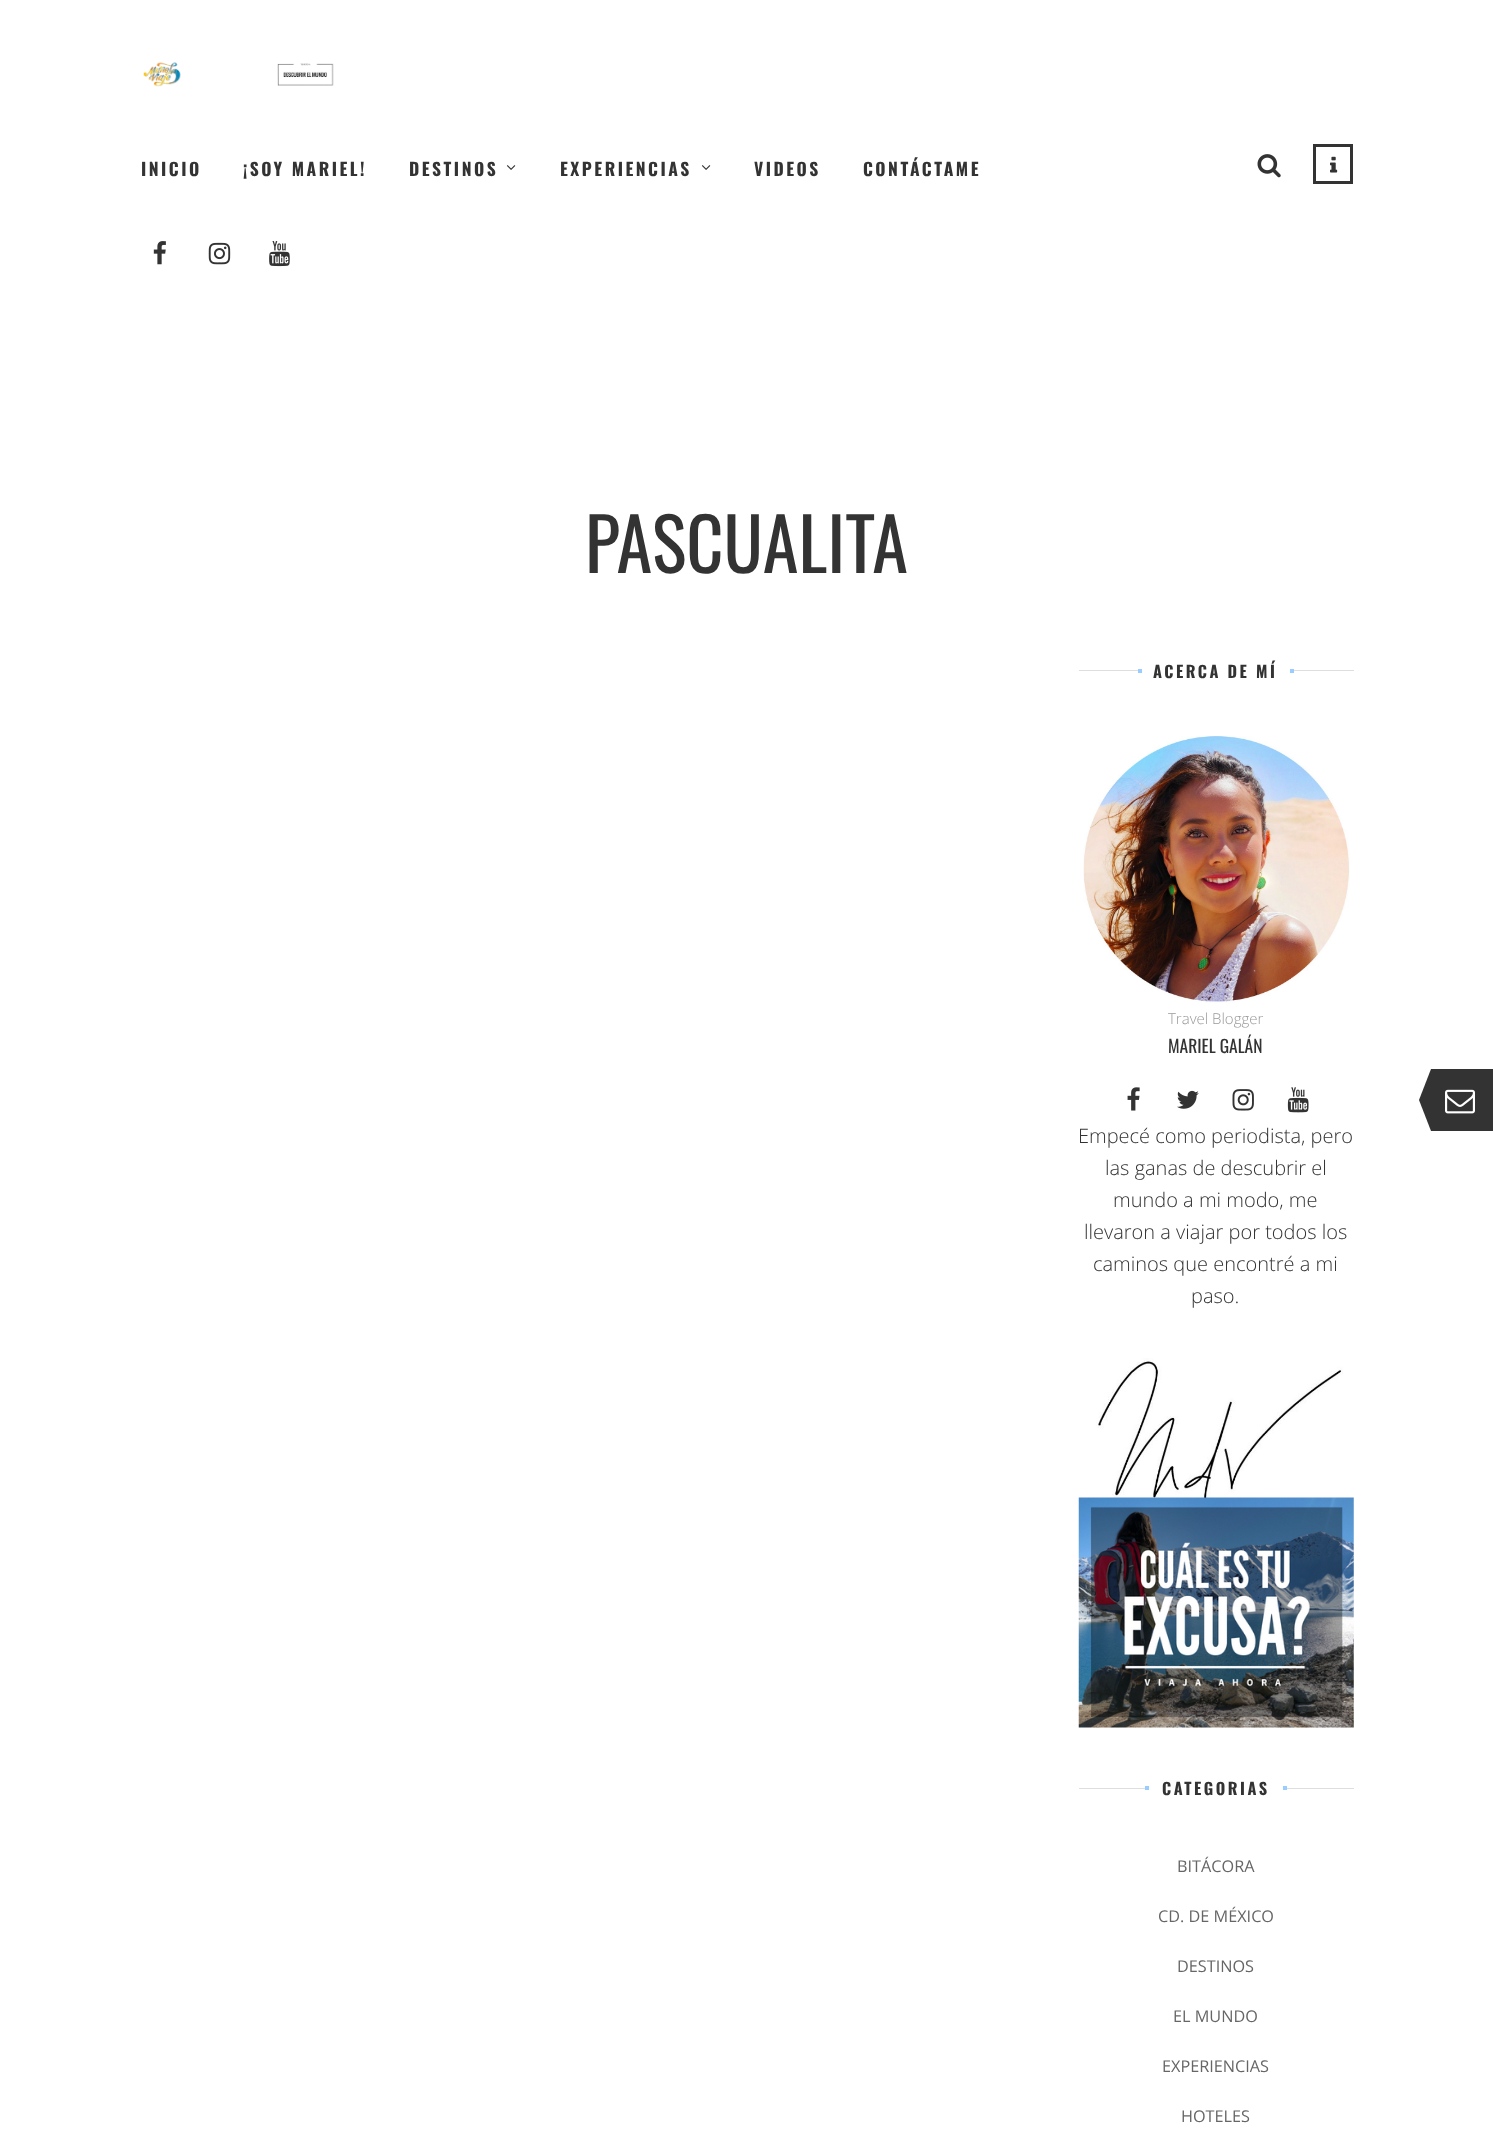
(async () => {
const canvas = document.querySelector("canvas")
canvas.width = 1493
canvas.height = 2136
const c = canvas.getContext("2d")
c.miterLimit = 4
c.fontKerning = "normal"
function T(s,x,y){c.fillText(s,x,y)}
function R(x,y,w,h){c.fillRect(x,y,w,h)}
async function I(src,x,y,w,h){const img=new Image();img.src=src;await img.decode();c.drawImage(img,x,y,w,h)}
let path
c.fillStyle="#fff"
R(0,0,1493,2136)
await I("1.png",143,62,191,25)
c.letterSpacing="2.5px"
c.font="bold 17.5px Oswald"
c.fillStyle="#333"
T("INICIO",141,176)
T("¡SOY MARIEL!",243,176)
T("DESTINOS",409,176)
await I("2.png",506,165,10,5)
T("EXPERIENCIAS",560,176)
await I("2.png",701,165,10,5)
T("VIDEOS",754,176)
T("CONTÁCTAME",863,176)
await I("3.png",153,241,13,24)
await I("4.png",208,242,23,23)
await I("5.png",269,241,21,26)
await I("6.png",1257,154,24,24)
c.strokeStyle="#333"
c.lineWidth=3
c.strokeRect(1314.5,145.5,37,37)
await I("7.png",1330,156,8,17)
c.letterSpacing="0px"
c.font="72.5px Oswald"
T("PASCUALITA",585,573)
c.fillStyle="#dedede"
R(1079,670,275,1)
c.fillStyle="#fff"
R(1141,670,149,1)
c.fillStyle="#9cf"
R(1138,669,4,4)
c.letterSpacing="2.5px"
c.font="bold 16.25px Oswald"
c.fillStyle="#333"
T("ACERCA DE MÍ",1153,678)
c.fillStyle="#9cf"
R(1290,669,4,4)
await I("8.png",1083,736,267,267)
c.letterSpacing="0px"
c.font="300 15px Open Sans"
c.fillStyle="#999"
T("Travel Blogger",1168,1024)
c.font="17.5px Oswald"
c.fillStyle="#333"
T("MARIEL GALÁN",1168,1053)
await I("9.png",1127,1087,13,24)
await I("10.png",1177,1090,22,19)
await I("11.png",1232,1089,22,22)
await I("12.png",1287,1087,22,26)
c.font="300 20px Open Sans"
T("Empecé como periodista, pero",1078,1143)
T("las ganas de descubrir el",1105,1175)
T("mundo a mi modo, me",1113,1207)
T("llevaron a viajar por todos los",1084,1239)
T("caminos que encontré a mi",1093,1271)
T("paso.",1191,1303)
await I("13.png",1096,1358,247,140)
await I("14.png",1078,1497,276,231)
c.fillStyle="#dedede"
R(1079,1788,275,1)
c.fillStyle="#fff"
R(1149,1788,134,1)
c.fillStyle="#9cf"
R(1145,1786,4,4)
c.letterSpacing="2.5px"
c.font="bold 16.25px Oswald"
c.fillStyle="#333"
T("CATEGORIAS",1162,1795)
c.fillStyle="#9cf"
R(1283,1786,4,4)
c.letterSpacing="0px"
c.font="16.25px Open Sans"
c.fillStyle="#666"
T("BITÁCORA",1177,1872)
T("CD. DE MÉXICO",1158,1922)
T("DESTINOS",1177,1972)
T("EL MUNDO",1173,2022)
T("EXPERIENCIAS",1162,2072)
T("HOTELES",1181,2122)
c.fillStyle="#333"
R(1431,1069,62,62)
path = new Path2D("M1431 1069v62l-12-31z")
c.fill(path)
await I("15.png",1445,1089,30,25)
})()
